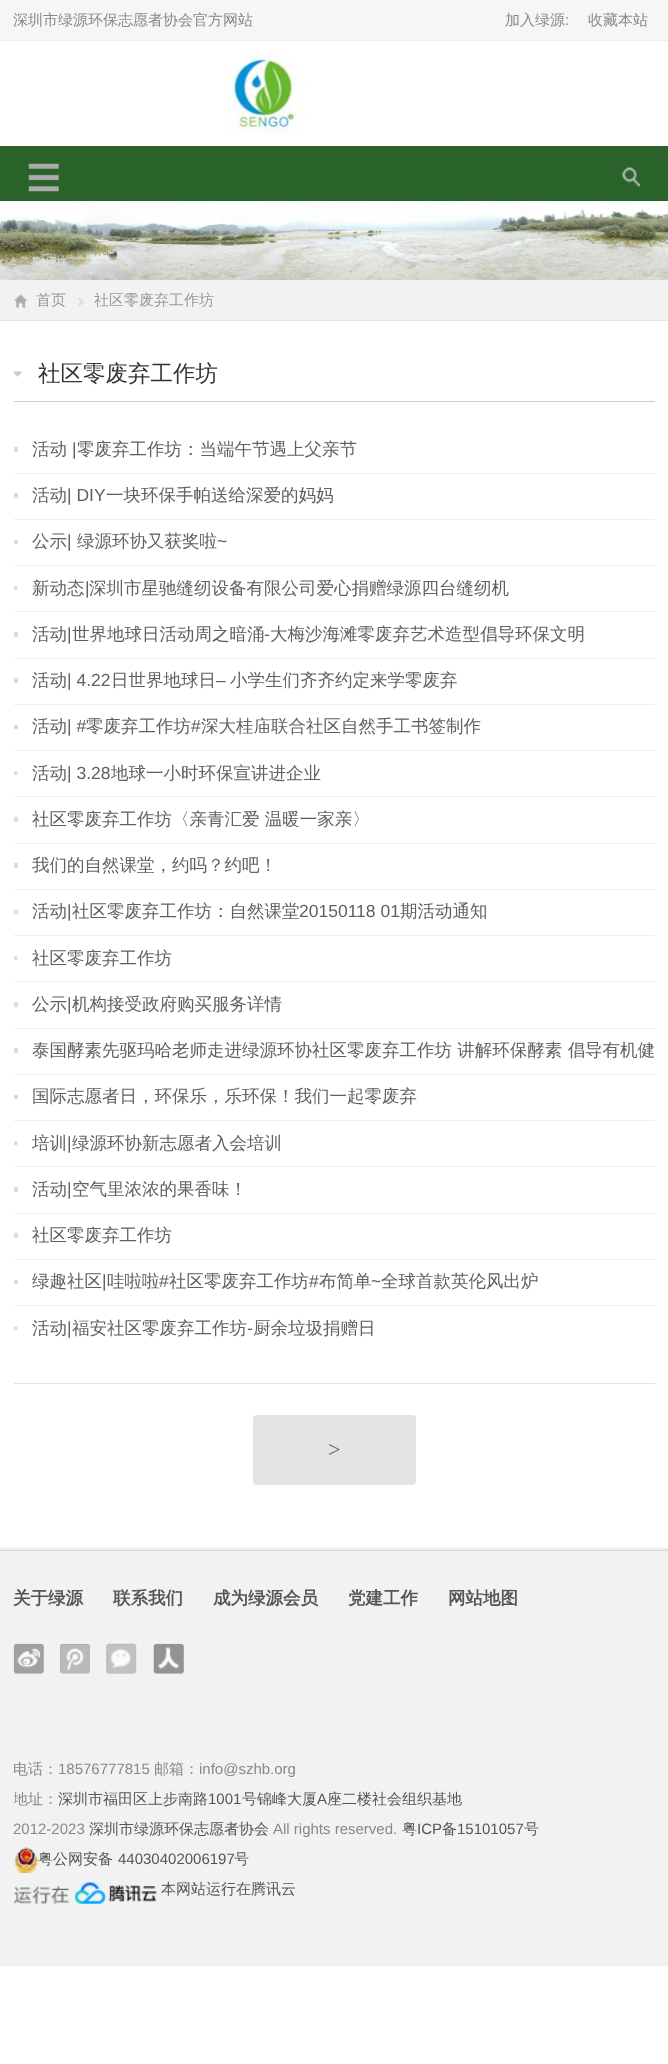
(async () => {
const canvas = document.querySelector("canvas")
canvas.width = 668
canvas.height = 2064
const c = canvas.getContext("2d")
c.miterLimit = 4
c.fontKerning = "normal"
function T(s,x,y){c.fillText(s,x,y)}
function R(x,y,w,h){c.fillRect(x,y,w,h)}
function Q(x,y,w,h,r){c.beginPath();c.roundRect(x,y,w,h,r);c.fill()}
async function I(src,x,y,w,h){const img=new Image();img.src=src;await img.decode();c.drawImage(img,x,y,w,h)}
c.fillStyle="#fff"
R(0,0,668,2064)
c.fillStyle="#f6f6f6"
R(0,0,668,40)
c.fillStyle="#eee"
R(0,40,668,1)
c.font="500 15px WenQuanYi Zen Hei"
c.fillStyle="#888"
T("深圳市绿源环保志愿者协会官方网站",13,25)
T("加入绿源",505,25)
c.font="15px Liberation Sans"
T(":",565,25)
c.font="500 15px WenQuanYi Zen Hei"
T("收藏本站",588,25)
await I("1.png",225,54,81,80)
c.fillStyle="#296329"
R(0,146,668,55)
await I("2.png",28,163,31,29)
await I("3.png",622,167,18,20)
await I("4.png",0,201,668,79)
c.fillStyle="#f2f2f2"
R(0,280,668,40)
c.fillStyle="#e4e4e4"
R(0,320,668,1)
await I("5.png",14,293,14,15)
c.fillStyle="#999"
T("首页",36,305)
await I("6.png",78,297,6,10)
T("社区零废弃工作坊",94,305)
await I("7.png",14,371,8,6)
c.fillStyle="#ccc"
R(14,401,641,1)
c.font="500 22.5px WenQuanYi Zen Hei"
c.fillStyle="#333"
T("社区零废弃工作坊",38,381)
c.fillStyle="#ddd"
R(14,447,4,5)
c.fillStyle="#eee"
R(14,473,641,1)
c.font="500 17.5px WenQuanYi Zen Hei"
c.fillStyle="#606060"
T("活动",32,455)
c.font="17.5px Liberation Sans"
T("|",72,455)
c.font="500 17.5px WenQuanYi Zen Hei"
T("零废弃工作坊：当端午节遇上父亲节",77,455)
c.fillStyle="#ddd"
R(14,493,4,5)
c.fillStyle="#eee"
R(14,519,641,1)
c.fillStyle="#606060"
T("活动",32,501)
c.font="17.5px Liberation Sans"
T("| DIY",67,501)
c.font="500 17.5px WenQuanYi Zen Hei"
T("一块环保手帕送给深爱的妈妈",106,501)
c.fillStyle="#ddd"
R(14,540,4,4)
c.fillStyle="#eee"
R(14,565,641,1)
c.fillStyle="#606060"
T("公示",32,547)
c.font="17.5px Liberation Sans"
T("|",67,547)
c.font="500 17.5px WenQuanYi Zen Hei"
T("绿源环协又获奖啦",77,547)
c.font="17.5px Liberation Sans"
T("~",217,547)
await I("8.png",14,586,4,5)
c.fillStyle="#eee"
R(14,611,641,1)
c.font="500 17.5px WenQuanYi Zen Hei"
c.fillStyle="#606060"
T("新动态",32,594)
c.font="17.5px Liberation Sans"
T("|",85,594)
c.font="500 17.5px WenQuanYi Zen Hei"
T("深圳市星驰缝纫设备有限公司爱心捐赠绿源四台缝纫机",89,594)
c.fillStyle="#ddd"
R(14,632,4,5)
c.fillStyle="#eee"
R(14,658,641,1)
c.fillStyle="#606060"
T("活动",32,640)
c.font="17.5px Liberation Sans"
T("|",67,640)
c.font="500 17.5px WenQuanYi Zen Hei"
T("世界地球日活动周之暗涌",72,640)
c.font="17.5px Liberation Sans"
T("-",264,640)
c.font="500 17.5px WenQuanYi Zen Hei"
T("大梅沙海滩零废弃艺术造型倡导环保文明",270,640)
c.fillStyle="#ddd"
R(14,678,4,5)
c.fillStyle="#eee"
R(14,704,641,1)
c.fillStyle="#606060"
T("活动",32,686)
c.font="17.5px Liberation Sans"
T("| 4.22",67,686)
c.font="500 17.5px WenQuanYi Zen Hei"
T("日世界地球日",111,686)
c.font="17.5px Liberation Sans"
T("–",216,686)
c.font="500 17.5px WenQuanYi Zen Hei"
T("小学生们齐齐约定来学零废弃",230,686)
c.fillStyle="#ddd"
R(14,725,4,4)
c.fillStyle="#eee"
R(14,750,641,1)
c.fillStyle="#606060"
T("活动",32,732)
c.font="17.5px Liberation Sans"
T("| #",67,732)
c.font="500 17.5px WenQuanYi Zen Hei"
T("零废弃工作坊",86,732)
c.font="17.5px Liberation Sans"
T("#",191,732)
c.font="500 17.5px WenQuanYi Zen Hei"
T("深大桂庙联合社区自然手工书签制作",201,732)
await I("8.png",14,771,4,5)
c.fillStyle="#eee"
R(14,796,641,1)
c.fillStyle="#606060"
T("活动",32,779)
c.font="17.5px Liberation Sans"
T("| 3.28",67,779)
c.font="500 17.5px WenQuanYi Zen Hei"
T("地球一小时环保宣讲进企业",111,779)
c.fillStyle="#ddd"
R(14,817,4,5)
c.fillStyle="#eee"
R(14,843,641,1)
c.fillStyle="#606060"
T("社区零废弃工作坊〈亲青汇爱 温暖一家亲〉",32,825)
c.fillStyle="#ddd"
R(14,863,4,5)
c.fillStyle="#eee"
R(14,889,641,1)
c.fillStyle="#606060"
T("我们的自然课堂，约吗？约吧！",32,871)
c.fillStyle="#ddd"
R(14,910,4,4)
c.fillStyle="#eee"
R(14,935,641,1)
c.fillStyle="#606060"
T("活动",32,917)
c.font="17.5px Liberation Sans"
T("|",67,917)
c.font="500 17.5px WenQuanYi Zen Hei"
T("社区零废弃工作坊：自然课堂",72,917)
c.font="17.5px Liberation Sans"
T("20150118 01",299,917)
c.font="500 17.5px WenQuanYi Zen Hei"
T("期活动通知",400,917)
await I("8.png",14,956,4,5)
c.fillStyle="#eee"
R(14,981,641,1)
c.fillStyle="#606060"
T("社区零废弃工作坊",32,964)
c.fillStyle="#ddd"
R(14,1002,4,5)
c.fillStyle="#eee"
R(14,1028,641,1)
c.fillStyle="#606060"
T("公示",32,1010)
c.font="17.5px Liberation Sans"
T("|",67,1010)
c.font="500 17.5px WenQuanYi Zen Hei"
T("机构接受政府购买服务详情",72,1010)
c.fillStyle="#ddd"
R(14,1048,4,5)
c.fillStyle="#eee"
R(14,1074,641,1)
c.fillStyle="#606060"
T("泰国酵素先驱玛哈老师走进绿源环协社区零废弃工作坊 讲解环保酵素 倡导有机健",32,1056)
c.fillStyle="#ddd"
R(14,1095,4,4)
c.fillStyle="#eee"
R(14,1120,641,1)
c.fillStyle="#606060"
T("国际志愿者日，环保乐，乐环保！我们一起零废弃",32,1102)
await I("8.png",14,1141,4,5)
c.fillStyle="#eee"
R(14,1166,641,1)
c.fillStyle="#606060"
T("培训",32,1149)
c.font="17.5px Liberation Sans"
T("|",67,1149)
c.font="500 17.5px WenQuanYi Zen Hei"
T("绿源环协新志愿者入会培训",72,1149)
c.fillStyle="#ddd"
R(14,1187,4,5)
c.fillStyle="#eee"
R(14,1213,641,1)
c.fillStyle="#606060"
T("活动",32,1195)
c.font="17.5px Liberation Sans"
T("|",67,1195)
c.font="500 17.5px WenQuanYi Zen Hei"
T("空气里浓浓的果香味！",72,1195)
c.fillStyle="#ddd"
R(14,1233,4,5)
c.fillStyle="#eee"
R(14,1259,641,1)
c.fillStyle="#606060"
T("社区零废弃工作坊",32,1241)
c.fillStyle="#ddd"
R(14,1280,4,4)
c.fillStyle="#eee"
R(14,1305,641,1)
c.fillStyle="#606060"
T("绿趣社区",32,1287)
c.font="17.5px Liberation Sans"
T("|",102,1287)
c.font="500 17.5px WenQuanYi Zen Hei"
T("哇啦啦",107,1287)
c.font="17.5px Liberation Sans"
T("#",159,1287)
c.font="500 17.5px WenQuanYi Zen Hei"
T("社区零废弃工作坊",169,1287)
c.font="17.5px Liberation Sans"
T("#",309,1287)
c.font="500 17.5px WenQuanYi Zen Hei"
T("布简单",319,1287)
c.font="17.5px Liberation Sans"
T("~",371,1287)
c.font="500 17.5px WenQuanYi Zen Hei"
T("全球首款英伦风出炉",381,1287)
await I("8.png",14,1326,4,5)
T("活动",32,1334)
c.font="17.5px Liberation Sans"
T("|",67,1334)
c.font="500 17.5px WenQuanYi Zen Hei"
T("福安社区零废弃工作坊",72,1334)
c.font="17.5px Liberation Sans"
T("-",247,1334)
c.font="500 17.5px WenQuanYi Zen Hei"
T("厨余垃圾捐赠日",253,1334)
c.fillStyle="#e4e4e4"
R(14,1383,641,1)
Q(253,1415,163,70,4)
c.font="22.5px Liberation Serif"
c.fillStyle="#666"
T(">",328,1457)
c.fillStyle="#f2f2f2"
R(0,1551,668,415)
c.fillStyle="#eee"
R(0,1548,668,2)
c.fillStyle="#d9d9d9"
R(0,1550,668,1)
c.font="bold 17.5px WenQuanYi Zen Hei"
c.fillStyle="#555"
T("关于绿源",13,1604)
T("联系我们",113,1604)
T("成为绿源会员",213,1604)
T("党建工作",348,1604)
T("网站地图",448,1604)
await I("9.png",13,1643,31,31)
await I("10.png",60,1643,30,31)
await I("11.png",106,1643,31,31)
await I("12.png",153,1643,31,31)
c.font="500 15px WenQuanYi Zen Hei"
c.fillStyle="#888"
T("电话：",13,1774)
c.font="15px Liberation Sans"
T("18576777815",58,1774)
c.font="500 15px WenQuanYi Zen Hei"
T("邮箱：",154,1774)
c.font="15px Liberation Sans"
T("info@szhb.org",199,1774)
c.save()
c.beginPath()
c.rect(14,1724,641,186)
c.clip()
c.font="500 15px WenQuanYi Zen Hei"
T("地址：",13,1804)
c.restore()
c.font="500 15px WenQuanYi Zen Hei"
c.fillStyle="#555"
T("深圳市福田区上步南路",58,1804)
c.font="15px Liberation Sans"
T("1001",208,1804)
c.font="500 15px WenQuanYi Zen Hei"
T("号锦峰大厦",242,1804)
c.font="15px Liberation Sans"
T("A",317,1804)
c.font="500 15px WenQuanYi Zen Hei"
T("座二楼社会组织基地",327,1804)
c.font="15px Liberation Sans"
c.fillStyle="#888"
T("2012-2023",13,1834)
c.font="500 15px WenQuanYi Zen Hei"
c.fillStyle="#555"
T("深圳市绿源环保志愿者协会",89,1834)
c.font="15px Liberation Sans"
c.fillStyle="#888"
T("All rights reserved.",273,1834)
c.font="500 15px WenQuanYi Zen Hei"
c.fillStyle="#555"
T("粤",402,1834)
c.font="15px Liberation Sans"
T("ICP",417,1834)
c.font="500 15px WenQuanYi Zen Hei"
T("备",442,1834)
c.font="15px Liberation Sans"
T("15101057",457,1834)
c.font="500 15px WenQuanYi Zen Hei"
T("号",524,1834)
await I("13.png",14,1847,24,26)
T("粤公网安备",38,1864)
c.font="15px Liberation Sans"
T("44030402006197",118,1864)
c.font="500 15px WenQuanYi Zen Hei"
T("号",234,1864)
await I("14.png",14,1882,143,22)
T("本网站运行在腾讯云",161,1894)
})()
